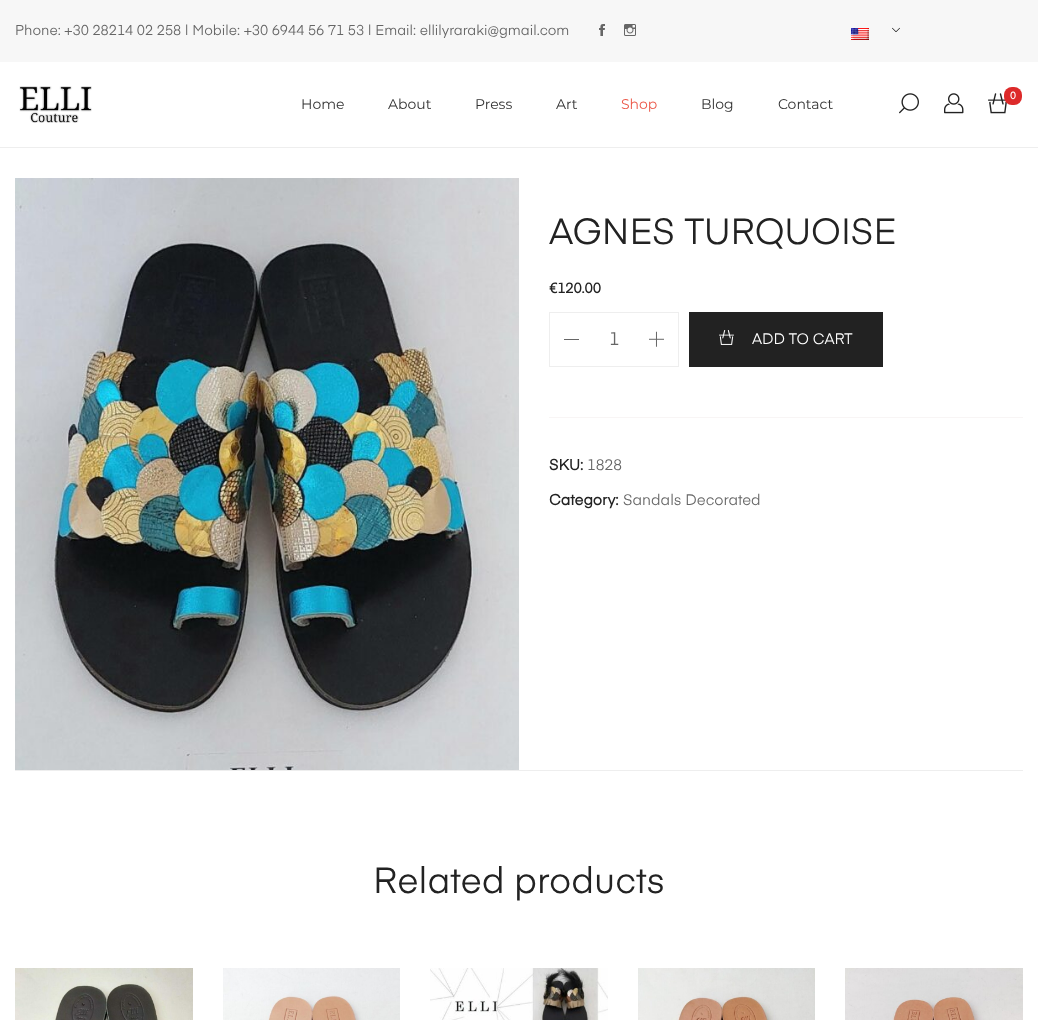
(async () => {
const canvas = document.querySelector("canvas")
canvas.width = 1038
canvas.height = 1020
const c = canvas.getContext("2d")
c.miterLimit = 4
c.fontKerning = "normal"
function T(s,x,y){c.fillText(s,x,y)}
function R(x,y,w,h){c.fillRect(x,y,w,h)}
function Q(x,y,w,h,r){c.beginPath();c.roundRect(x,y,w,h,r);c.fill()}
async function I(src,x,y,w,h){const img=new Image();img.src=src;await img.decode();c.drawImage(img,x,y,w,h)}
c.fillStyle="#fff"
R(0,0,1038,1020)
c.fillStyle="#f7f7f7"
R(0,0,1038,62)
c.font="14px 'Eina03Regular'"
c.fillStyle="#666"
T("Phone: +30 28214 02 258 | Mobile: +30 6944 56 71 53 | Email: ellilyraraki@gmail.com",15,35)
await I("1.png",599,24,6,12)
await I("2.png",624,24,12,12)
await I("3.png",892,27,8,5)
await I("4.png",851,28,18,12)
c.fillStyle="#eee"
R(0,147,1038,1)
await I("5.png",19,86,73,37)
await I("6.png",899,93,20,21)
await I("7.png",944,93,20,21)
await I("8.png",988,93,19,21)
c.fillStyle="#dd2a2a"
Q(1004,87,18,18,8)
c.font="bold 10px 'Eina03Regular'"
c.fillStyle="#fff"
T("0",1010,99)
c.font="14px Montserrat"
c.fillStyle="#333"
T("Home",301,109)
T("About",388,109)
T("Press",475,109)
T("Art",556,109)
c.fillStyle="#ec5849"
T("Shop",621,109)
c.fillStyle="#333"
T("Blog",701,109)
T("Contact",778,109)
await I("9.png",15,178,504,592)
c.font="36px 'Eina03Regular'"
c.fillStyle="#222"
T("AGNES TURQUOISE",549,244)
c.font="bold 14px 'Eina03Regular'"
T("€120.00",549,293)
c.strokeStyle="#eee"
c.strokeRect(549.5,312.5,129,54)
c.fillStyle="#666"
R(564,339,15,1)
c.font="18px 'Eina03Regular'"
T("1",609,345)
await I("10.png",649,331,15,16)
c.fillStyle="#222"
R(689,312,194,55)
await I("11.png",719,330,15,15)
c.font="15px 'Eina03Regular'"
c.fillStyle="#fff"
T("ADD TO CART",752,344)
c.fillStyle="#f8f5f5"
R(549,417,474,1)
c.font="bold 15px 'Eina03Regular'"
c.fillStyle="#222"
T("SKU:",549,470)
c.font="15px 'Eina03Regular'"
c.fillStyle="#666"
T("1828",587,470)
c.font="bold 15px 'Eina03Regular'"
c.fillStyle="#222"
T("Category:",549,505)
c.font="15px 'Eina03Regular'"
c.fillStyle="#666"
T("Sandals Decorated",623,505)
c.fillStyle="#eee"
R(15,770,1008,1)
c.font="36px 'Eina03Regular'"
c.fillStyle="#222"
T("Related products",373,893)
await I("12.png",15,968,178,52)
await I("13.png",223,968,177,52)
await I("14.png",430,968,178,52)
await I("15.png",638,968,177,52)
await I("16.png",845,968,178,52)
})()
